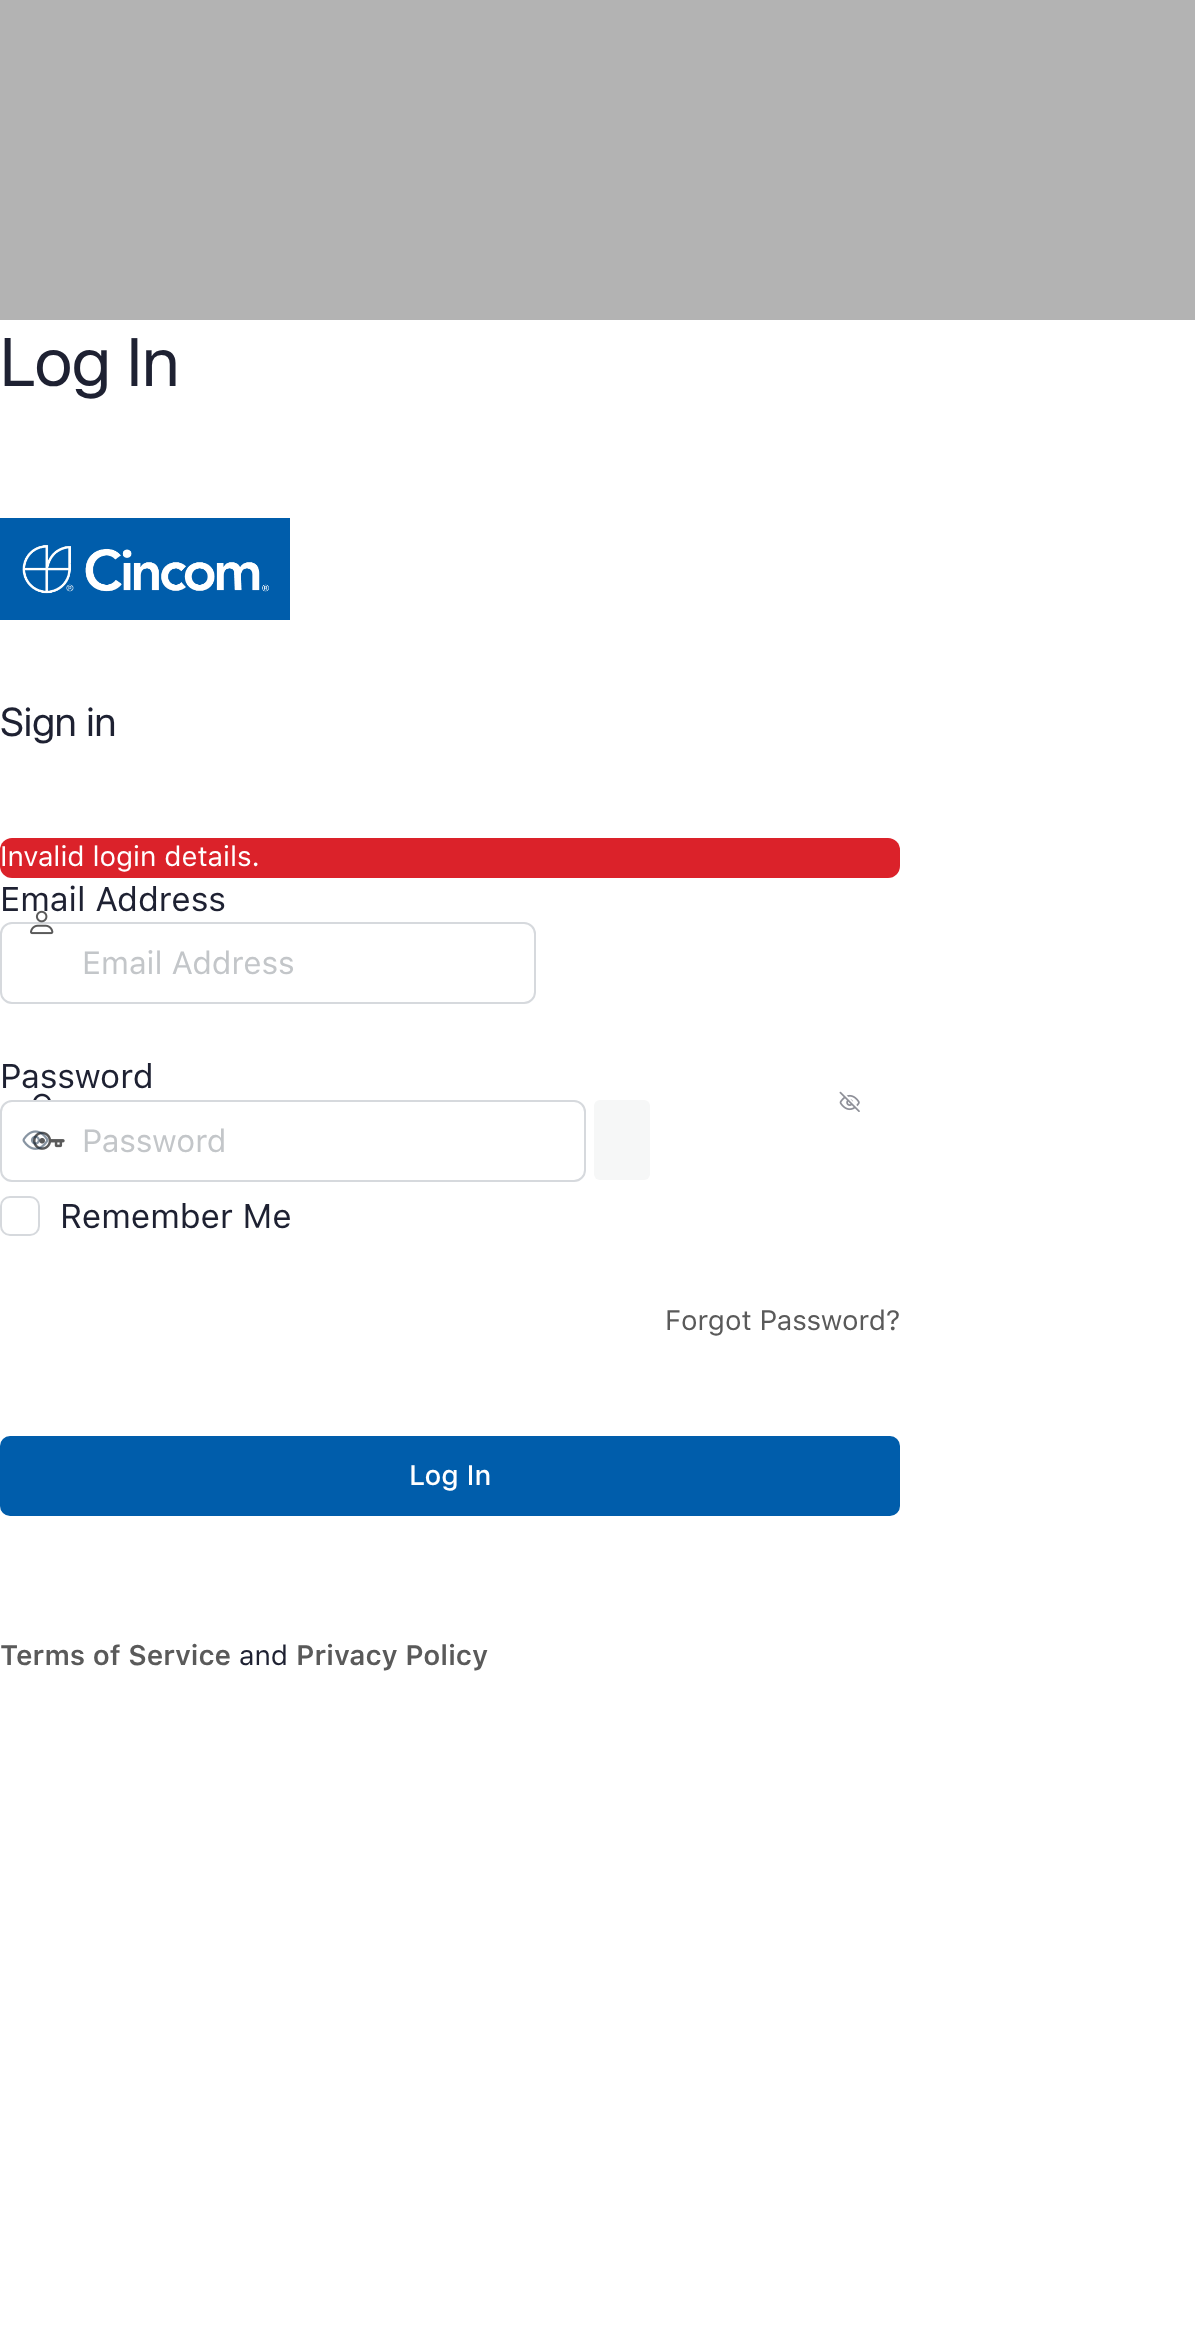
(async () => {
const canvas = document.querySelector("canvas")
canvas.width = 1195
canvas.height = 2340
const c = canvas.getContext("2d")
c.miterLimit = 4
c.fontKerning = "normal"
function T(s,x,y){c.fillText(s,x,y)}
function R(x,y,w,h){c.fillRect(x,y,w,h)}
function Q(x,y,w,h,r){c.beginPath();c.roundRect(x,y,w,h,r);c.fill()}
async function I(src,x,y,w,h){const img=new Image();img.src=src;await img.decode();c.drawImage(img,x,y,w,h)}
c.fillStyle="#fff"
R(0,0,1195,2340)
c.fillStyle="#b3b3b3"
R(0,0,1195,320)
c.font="68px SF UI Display"
c.fillStyle="#1e2132"
T("Log In",0,386)
await I("1.png",0,518,290,102)
c.font="40px SF UI Display"
T("Sign in",0,736)
c.fillStyle="#db222a"
Q(0,838,900,40,12)
c.font="28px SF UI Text"
c.fillStyle="#fff"
T("Invalid login details.",0,866)
c.font="34px SF UI Text"
c.fillStyle="#1e2132"
T("Email Address",0,911)
c.beginPath()
c.roundRect(1,923,534,80,11)
c.strokeStyle="#d6d9dd"
c.lineWidth=2
c.stroke()
await I("2.png",30,910,24,25)
c.font="32px SF UI Text"
c.fillStyle="#c3c6c9"
T("Email Address",82,974)
c.font="34px SF UI Text"
c.fillStyle="#1e2132"
T("Password",0,1088)
await I("3.png",33,1093,18,7)
await I("4.png",839,1091,21,21)
c.fillStyle="#f6f7f7"
Q(594,1100,56,80,6)
c.beginPath()
c.roundRect(1,1101,584,80,11)
c.stroke()
await I("6.png",33,1131,32,19)
await I("5.png",22,1130,27,20)
c.font="32px SF UI Text"
c.fillStyle="#c3c6c9"
T("Password",82,1152)
c.beginPath()
c.roundRect(1,1197,38,38,9)
c.stroke()
c.font="34px SF UI Text"
c.fillStyle="#1e2132"
T("Remember Me",60,1228)
c.font="28px SF UI Text"
c.fillStyle="#5a5a5a"
T("Forgot Password?",665,1330)
c.fillStyle="#005dab"
c.beginPath()
c.roundRect(1,1437,898,78,9)
c.fill()
c.strokeStyle="#005dab"
c.stroke()
c.font="500 28px SF UI Text"
c.fillStyle="#fff"
T("Log In",409,1485)
c.font="600 28px SF UI Text"
c.fillStyle="#5a5a5a"
T("Terms of Service",0,1665)
c.font="28px SF UI Text"
c.fillStyle="#1e2132"
T("and",239,1665)
c.font="600 28px SF UI Text"
c.fillStyle="#5a5a5a"
T("Privacy Policy",296,1665)
})()
